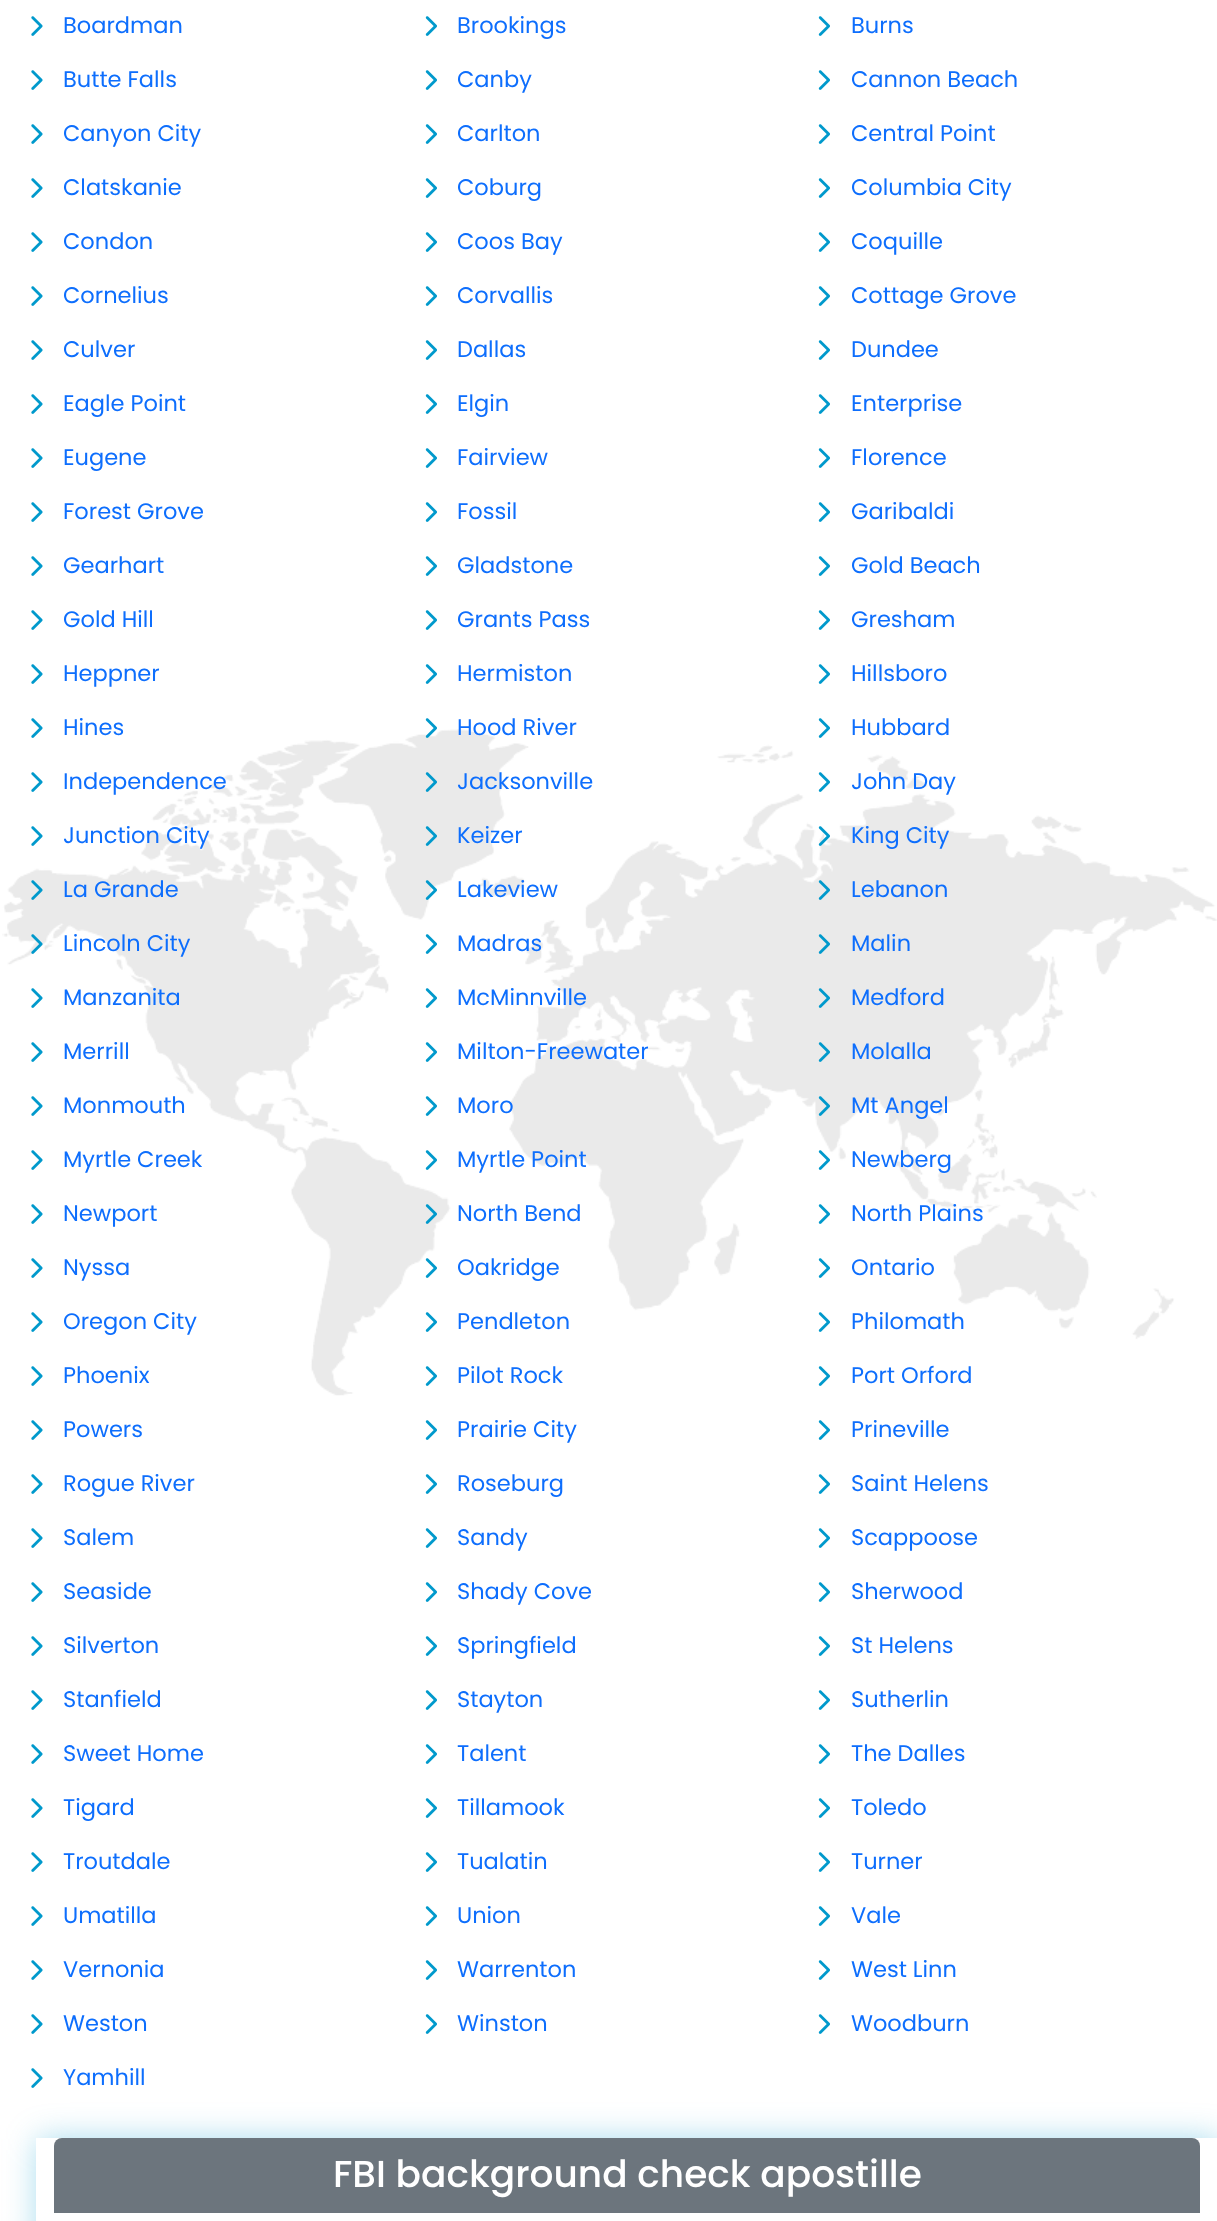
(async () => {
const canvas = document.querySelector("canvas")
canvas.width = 1217
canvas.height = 2221
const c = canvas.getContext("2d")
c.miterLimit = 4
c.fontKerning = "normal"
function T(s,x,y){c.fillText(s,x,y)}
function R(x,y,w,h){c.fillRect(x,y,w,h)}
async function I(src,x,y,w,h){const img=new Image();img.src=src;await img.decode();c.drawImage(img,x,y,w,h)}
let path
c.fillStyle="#fff"
R(0,0,1217,2221)
await I("1.png",2,729,1215,667)
await I("2.png",31,16,12,20)
c.font="22.5px Poppins"
c.fillStyle="#0d6efd"
T("Boardman",63,33)
await I("3.png",425,16,12,20)
T("Brookings",457,33)
await I("3.png",818,16,12,20)
T("Burns",851,33)
await I("2.png",31,70,12,20)
T("Butte Falls",63,87)
await I("3.png",425,70,12,20)
T("Canby",457,87)
await I("3.png",818,70,12,20)
T("Cannon Beach",851,87)
await I("2.png",31,124,12,20)
T("Canyon City",63,141)
await I("3.png",425,124,12,20)
T("Carlton",457,141)
await I("3.png",818,124,12,20)
T("Central Point",851,141)
await I("2.png",31,178,12,20)
T("Clatskanie",63,195)
await I("3.png",425,178,12,20)
T("Coburg",457,195)
await I("3.png",818,178,12,20)
T("Columbia City",851,195)
await I("2.png",31,232,12,20)
T("Condon",63,249)
await I("3.png",425,232,12,20)
T("Coos Bay",457,249)
await I("3.png",818,232,12,20)
T("Coquille",851,249)
await I("2.png",31,286,12,20)
T("Cornelius",63,303)
await I("3.png",425,286,12,20)
T("Corvallis",457,303)
await I("3.png",818,286,12,20)
T("Cottage Grove",851,303)
await I("2.png",31,340,12,20)
T("Culver",63,357)
await I("3.png",425,340,12,20)
T("Dallas",457,357)
await I("3.png",818,340,12,20)
T("Dundee",851,357)
await I("2.png",31,394,12,20)
T("Eagle Point",63,411)
await I("3.png",425,394,12,20)
T("Elgin",457,411)
await I("3.png",818,394,12,20)
T("Enterprise",851,411)
await I("2.png",31,448,12,20)
T("Eugene",63,465)
await I("3.png",425,448,12,20)
T("Fairview",457,465)
await I("3.png",818,448,12,20)
T("Florence",851,465)
await I("2.png",31,502,12,20)
T("Forest Grove",63,519)
await I("3.png",425,502,12,20)
T("Fossil",457,519)
await I("3.png",818,502,12,20)
T("Garibaldi",851,519)
await I("2.png",31,556,12,20)
T("Gearhart",63,573)
await I("3.png",425,556,12,20)
T("Gladstone",457,573)
await I("3.png",818,556,12,20)
T("Gold Beach",851,573)
await I("2.png",31,610,12,20)
T("Gold Hill",63,627)
await I("3.png",425,610,12,20)
T("Grants Pass",457,627)
await I("3.png",818,610,12,20)
T("Gresham",851,627)
await I("2.png",31,664,12,20)
T("Heppner",63,681)
await I("3.png",425,664,12,20)
T("Hermiston",457,681)
await I("3.png",818,664,12,20)
T("Hillsboro",851,681)
await I("2.png",31,718,12,20)
T("Hines",63,735)
await I("4.png",425,718,12,20)
T("Hood River",457,735)
await I("3.png",818,718,12,20)
T("Hubbard",851,735)
await I("2.png",31,772,12,20)
T("Independence",63,789)
await I("5.png",425,772,12,20)
T("Jacksonville",457,789)
await I("3.png",818,772,12,20)
T("John Day",851,789)
await I("2.png",31,826,12,20)
T("Junction City",63,843)
await I("5.png",425,826,12,20)
T("Keizer",457,843)
await I("6.png",818,826,12,20)
T("King City",851,843)
await I("7.png",31,880,12,20)
T("La Grande",63,897)
await I("8.png",425,880,12,20)
T("Lakeview",457,897)
await I("5.png",818,880,12,20)
T("Lebanon",851,897)
await I("9.png",31,934,12,20)
T("Lincoln City",63,951)
await I("3.png",425,934,12,20)
T("Madras",457,951)
await I("5.png",818,934,12,20)
T("Malin",851,951)
await I("2.png",31,988,12,20)
T("Manzanita",63,1005)
await I("3.png",425,988,12,20)
T("McMinnville",457,1005)
await I("5.png",818,988,12,20)
T("Medford",851,1005)
await I("2.png",31,1042,12,20)
T("Merrill",63,1059)
await I("3.png",425,1042,12,20)
T("Milton-Freewater",457,1059)
await I("5.png",818,1042,12,20)
T("Molalla",851,1059)
await I("2.png",31,1096,12,20)
T("Monmouth",63,1113)
await I("3.png",425,1096,12,20)
T("Moro",457,1113)
await I("5.png",818,1096,12,20)
T("Mt Angel",851,1113)
await I("2.png",31,1150,12,20)
T("Myrtle Creek",63,1167)
await I("3.png",425,1150,12,20)
T("Myrtle Point",457,1167)
await I("10.png",818,1150,12,20)
T("Newberg",851,1167)
await I("2.png",31,1204,12,20)
T("Newport",63,1221)
await I("11.png",425,1204,12,20)
T("North Bend",457,1221)
await I("3.png",818,1204,12,20)
T("North Plains",851,1221)
await I("2.png",31,1258,12,20)
T("Nyssa",63,1275)
await I("3.png",425,1258,12,20)
T("Oakridge",457,1275)
await I("3.png",818,1258,12,20)
T("Ontario",851,1275)
await I("2.png",31,1312,12,20)
T("Oregon City",63,1329)
await I("3.png",425,1312,12,20)
T("Pendleton",457,1329)
await I("3.png",818,1312,12,20)
T("Philomath",851,1329)
await I("2.png",31,1366,12,20)
T("Phoenix",63,1383)
await I("3.png",425,1366,12,20)
T("Pilot Rock",457,1383)
await I("3.png",818,1366,12,20)
T("Port Orford",851,1383)
await I("2.png",31,1420,12,20)
T("Powers",63,1437)
await I("3.png",425,1420,12,20)
T("Prairie City",457,1437)
await I("3.png",818,1420,12,20)
T("Prineville",851,1437)
await I("2.png",31,1474,12,20)
T("Rogue River",63,1491)
await I("3.png",425,1474,12,20)
T("Roseburg",457,1491)
await I("3.png",818,1474,12,20)
T("Saint Helens",851,1491)
await I("2.png",31,1528,12,20)
T("Salem",63,1545)
await I("3.png",425,1528,12,20)
T("Sandy",457,1545)
await I("3.png",818,1528,12,20)
T("Scappoose",851,1545)
await I("2.png",31,1582,12,20)
T("Seaside",63,1599)
await I("3.png",425,1582,12,20)
T("Shady Cove",457,1599)
await I("3.png",818,1582,12,20)
T("Sherwood",851,1599)
await I("2.png",31,1636,12,20)
T("Silverton",63,1653)
await I("3.png",425,1636,12,20)
T("Springfield",457,1653)
await I("3.png",818,1636,12,20)
T("St Helens",851,1653)
await I("2.png",31,1690,12,20)
T("Stanfield",63,1707)
await I("3.png",425,1690,12,20)
T("Stayton",457,1707)
await I("3.png",818,1690,12,20)
T("Sutherlin",851,1707)
await I("2.png",31,1744,12,20)
T("Sweet Home",63,1761)
await I("3.png",425,1744,12,20)
T("Talent",457,1761)
await I("3.png",818,1744,12,20)
T("The Dalles",851,1761)
await I("2.png",31,1798,12,20)
T("Tigard",63,1815)
await I("3.png",425,1798,12,20)
T("Tillamook",457,1815)
await I("3.png",818,1798,12,20)
T("Toledo",851,1815)
await I("2.png",31,1852,12,20)
T("Troutdale",63,1869)
await I("3.png",425,1852,12,20)
T("Tualatin",457,1869)
await I("3.png",818,1852,12,20)
T("Turner",851,1869)
await I("2.png",31,1906,12,20)
T("Umatilla",63,1923)
await I("3.png",425,1906,12,20)
T("Union",457,1923)
await I("3.png",818,1906,12,20)
T("Vale",851,1923)
await I("2.png",31,1960,12,20)
T("Vernonia",63,1977)
await I("3.png",425,1960,12,20)
T("Warrenton",457,1977)
await I("3.png",818,1960,12,20)
T("West Linn",851,1977)
await I("2.png",31,2014,12,20)
T("Weston",63,2031)
await I("3.png",425,2014,12,20)
T("Winston",457,2031)
await I("3.png",818,2014,12,20)
T("Woodburn",851,2031)
await I("2.png",31,2068,12,20)
T("Yamhill",63,2085)
c.save()
path = new Path2D("M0 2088h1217v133h-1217zm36 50h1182v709h-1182z")
c.clip(path,"evenodd")
c.fillStyle="#0099cc5c"
c.filter="blur(16.5px)"
c.beginPath()
c.rect(38,2139,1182,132)
c.fill()
c.filter="none"
c.restore()
c.fillStyle="#6c757d"
c.beginPath()
c.roundRect(54,2138,1146,75,[8,8,0,0])
c.fill()
c.font="500 37.5px Poppins"
c.fillStyle="#fff"
T("FBI background check apostille",333,2187)
})()
